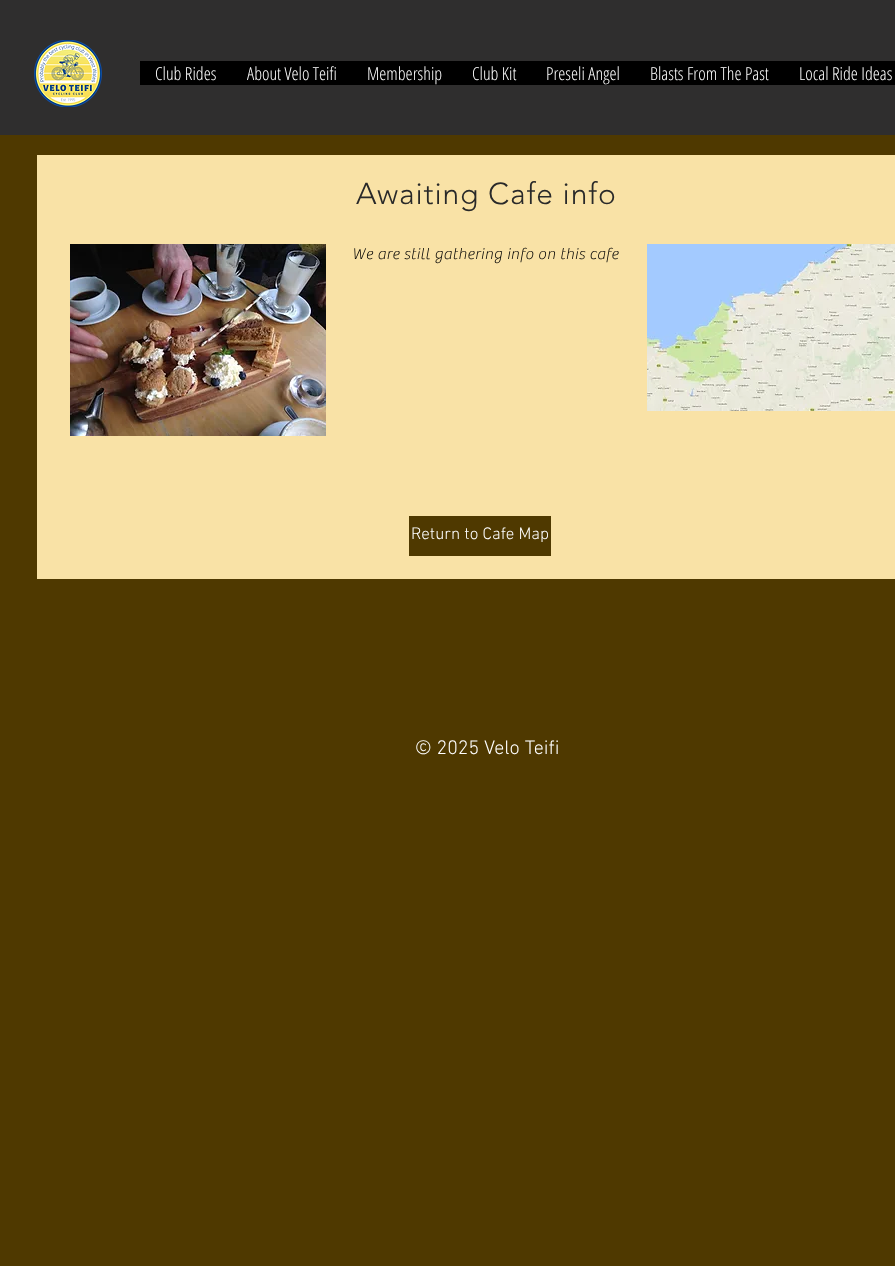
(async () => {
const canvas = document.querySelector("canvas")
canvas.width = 895
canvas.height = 1266
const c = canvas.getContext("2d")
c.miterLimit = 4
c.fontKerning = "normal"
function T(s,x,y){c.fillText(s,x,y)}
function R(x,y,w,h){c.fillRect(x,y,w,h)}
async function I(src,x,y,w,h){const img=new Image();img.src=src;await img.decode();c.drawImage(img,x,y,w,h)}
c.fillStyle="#4f3900"
R(0,0,895,1266)
c.fillStyle="#2f2e2e"
R(0,0,895,135)
await I("1.png",34,40,68,67)
c.fillStyle="#000"
R(140,61,755,24)
c.font="300 18px Open Sans Condensed"
c.fillStyle="#fff"
T("Club Rides",155,80)
T("About Velo Teifi",247,80)
T("Membership",367,80)
T("Club Kit",472,80)
T("Preseli Angel",546,80)
T("Blasts From The Past",650,80)
T("Local Ride Ideas",799,80)
c.fillStyle="#f9e2a6"
R(37,155,858,424)
c.letterSpacing="0.9px"
c.font="300 30px 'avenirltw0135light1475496'"
c.fillStyle="#292929"
T("Awaiting Cafe info",356,204)
await I("2.png",70,244,256,192)
c.letterSpacing="0.5px"
c.font="100 16px 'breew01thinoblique'"
c.fillStyle="#000"
T("We are still gathering info on this cafe",352,259)
await I("3.png",647,244,248,167)
c.fillStyle="#4f3900"
R(409,516,142,40)
c.letterSpacing="0px"
c.font="300 17px 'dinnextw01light'"
c.fillStyle="#fff"
T("Return to Cafe Map",411,539)
c.font="300 20px 'dinnextw01light'"
T("© 2025 Velo Teifi",415,754)
})()
